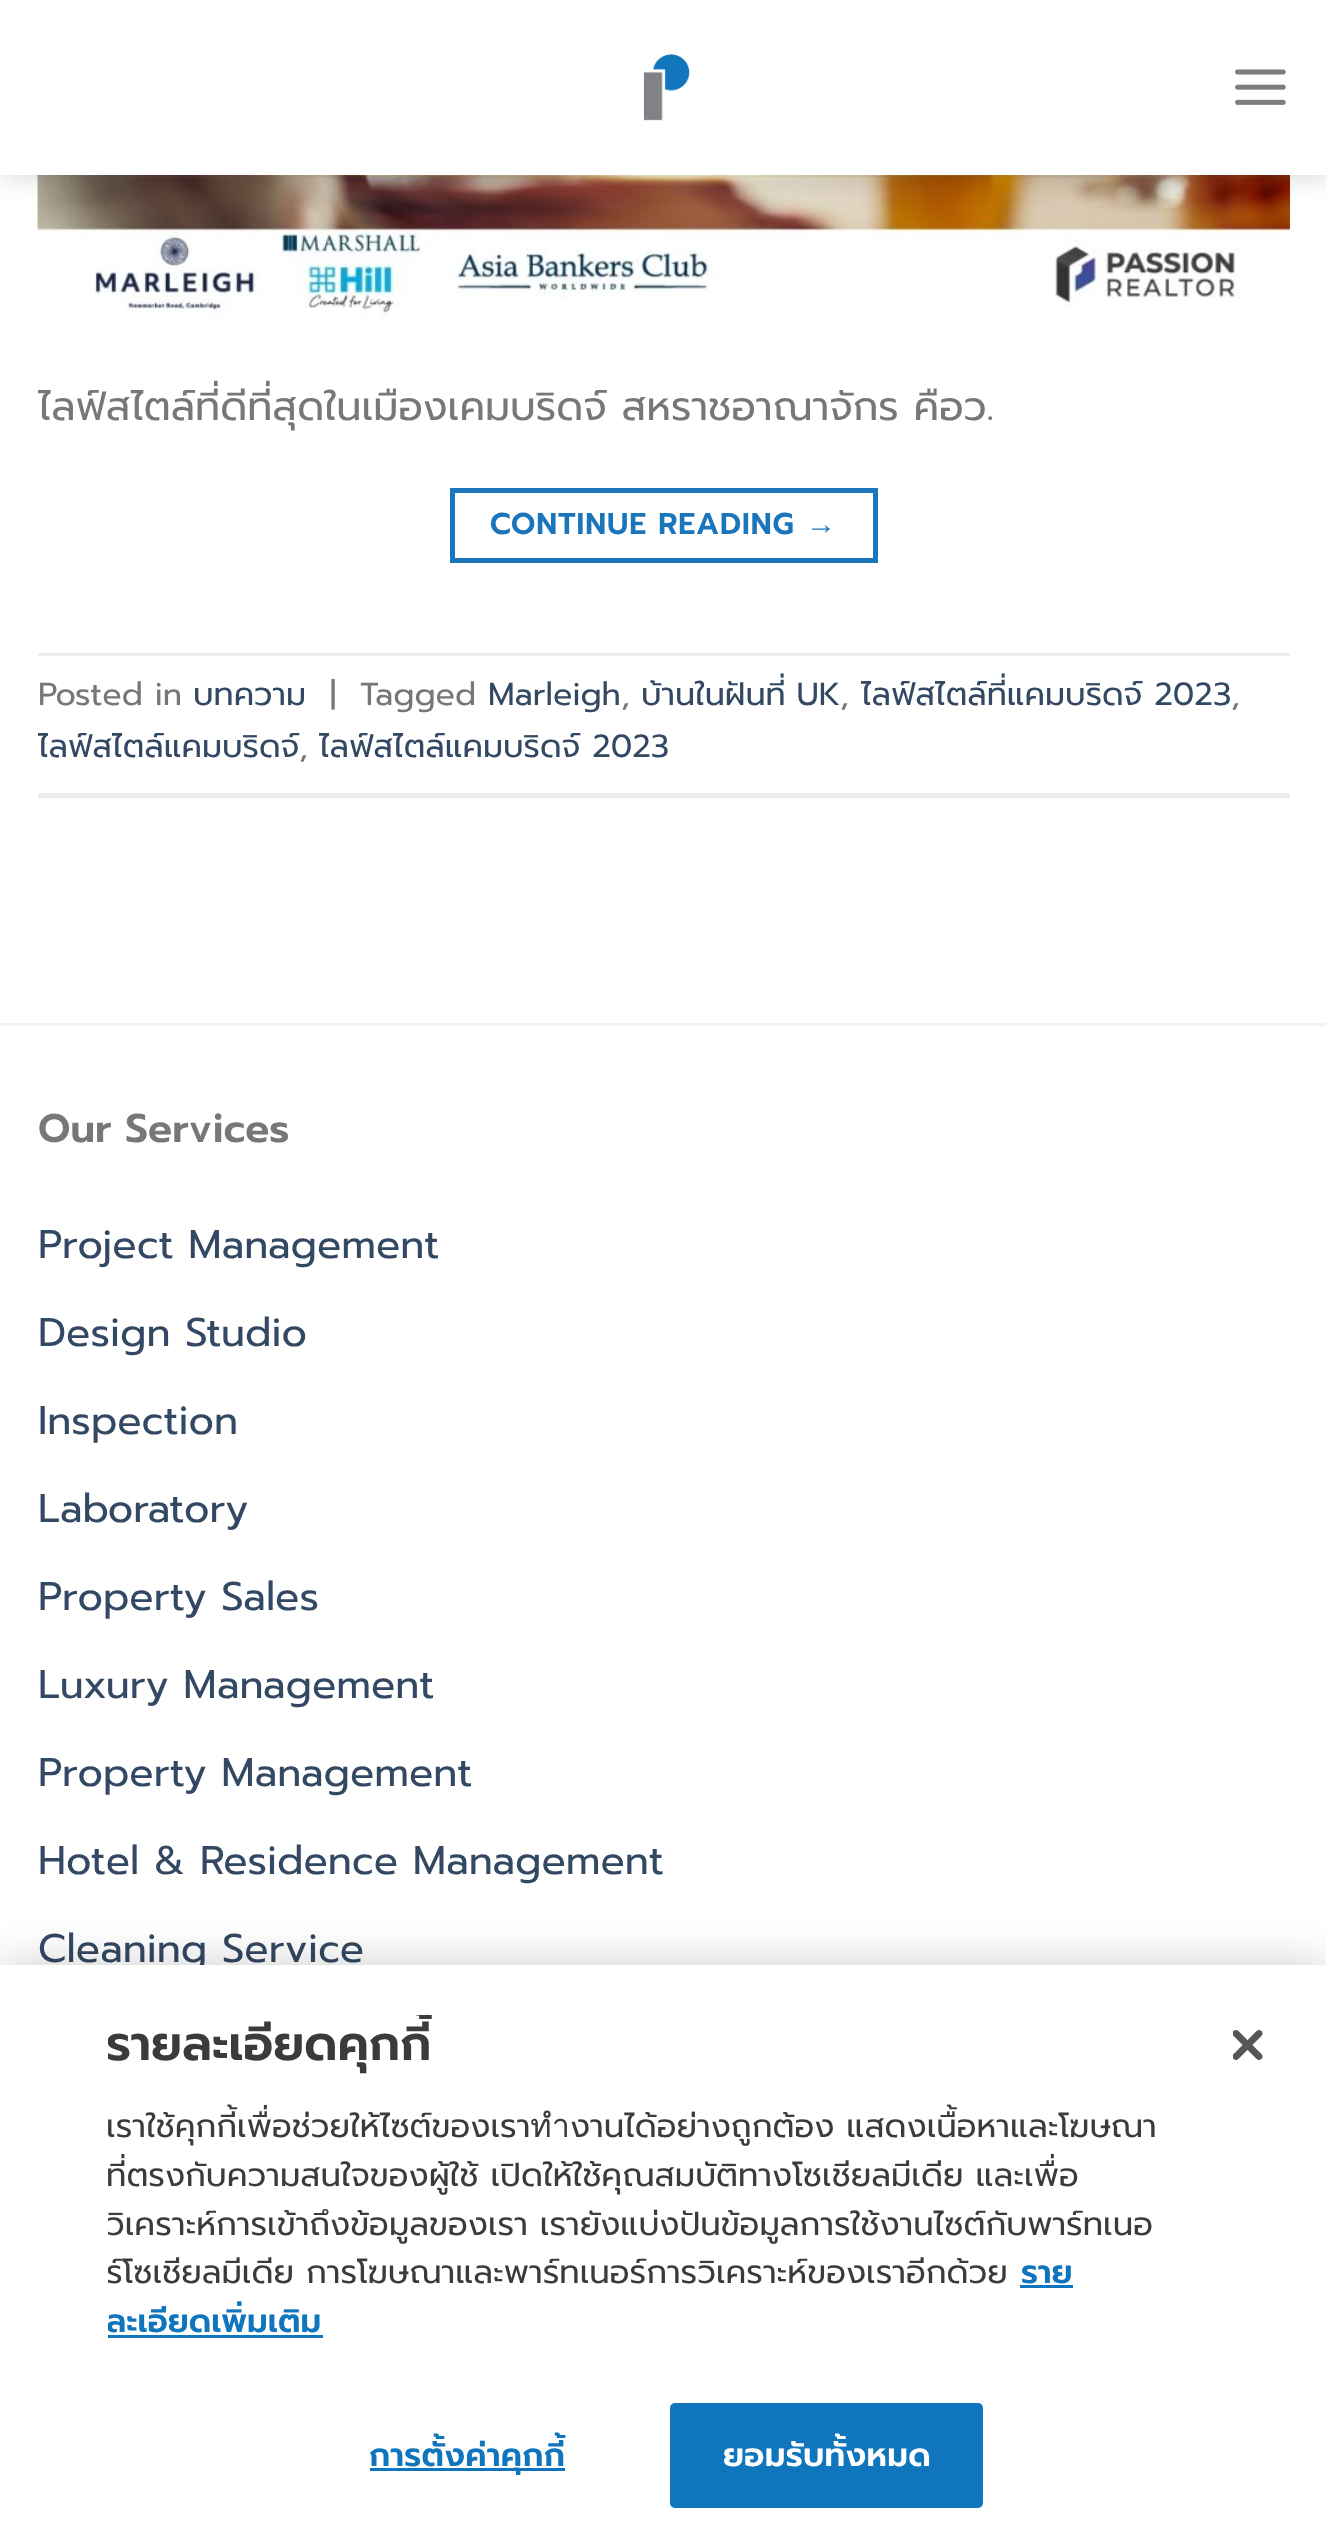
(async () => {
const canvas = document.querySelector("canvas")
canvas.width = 1326
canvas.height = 2546
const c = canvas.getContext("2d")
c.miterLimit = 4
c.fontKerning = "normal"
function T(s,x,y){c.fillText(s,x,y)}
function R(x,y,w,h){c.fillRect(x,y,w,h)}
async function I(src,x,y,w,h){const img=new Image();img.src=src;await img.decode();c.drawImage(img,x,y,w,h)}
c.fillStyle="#fff"
R(0,0,1326,2546)
await I("3.png",37,175,1253,143)
c.fillStyle="#00000026"
c.filter="blur(12.5px)"
c.beginPath()
c.rect(3,3,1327,175)
c.fill()
c.filter="none"
c.fillStyle="#fff"
R(0,0,1326,175)
await I("1.png",643,54,48,67)
await I("2.png",1235,69,51,36)
c.fillStyle="#7777771a"
R(38,175,1252,3)
c.font="40px Prompt"
c.fillStyle="#777"
T("ไลฟ์สไตล์ที่ดีที่สุดในเมืองเคมบริดจ์ สหราชอาณาจักร คือว.",38,420)
c.strokeStyle="#1b75bb"
c.lineWidth=5
c.strokeRect(452.5,490.5,423,70)
c.letterSpacing="0.9px"
c.font="600 30px Prompt"
c.fillStyle="#1b75bb"
T("CONTINUE READING",490,534)
c.font="bold 30px Liberation Sans"
T("→",806,534)
c.fillStyle="#ececec"
R(38,653,1252,3)
R(38,793,1252,5)
c.letterSpacing="0px"
c.font="32px Prompt"
c.fillStyle="#777"
T("Posted in",38,705)
c.fillStyle="#334862"
T("บทความ",193,705)
c.fillStyle="#777"
T("|",330,705)
T("Tagged",360,705)
c.fillStyle="#334862"
T("Marleigh",488,705)
c.fillStyle="#777"
T(",",621,705)
c.wordSpacing="-1px"
c.fillStyle="#334862"
T("บ้านในฝันที่ UK",641,705)
c.wordSpacing="0px"
c.fillStyle="#777"
T(",",840,705)
c.fillStyle="#334862"
T("ไลฟ์สไตล์ที่แคมบริดจ์ 2023",861,705)
c.fillStyle="#777"
T(",",1231,705)
c.fillStyle="#334862"
T("ไลฟ์สไตล์แคมบริดจ์",38,757)
c.fillStyle="#777"
T(",",299,757)
c.fillStyle="#334862"
T("ไลฟ์สไตล์แคมบริดจ์ 2023",319,757)
c.fillStyle="#f2f2f2"
R(0,1023,1326,3)
c.font="600 40px Prompt"
c.fillStyle="#777"
T("Our Services",38,1142)
c.font="40px Prompt"
c.fillStyle="#334862"
T("Project Management",38,1258)
T("Design Studio",38,1346)
T("Inspection",38,1434)
T("Laboratory",38,1522)
T("Property Sales",38,1610)
T("Luxury Management",38,1698)
T("Property Management",38,1786)
T("Hotel & Residence Management",38,1874)
T("Cleaning Service",38,1962)
c.fillStyle="#00000033"
c.filter="blur(22.5px)"
c.beginPath()
c.rect(0,1965,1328,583)
c.fill()
c.filter="none"
c.fillStyle="#fff"
R(0,1965,1326,581)
c.save()
c.beginPath()
c.rect(108,2015,1055,363)
c.clip()
c.font="600 48px Prompt"
c.fillStyle="#3b3b3b"
T("รายละเอียดคุกกี้",106,2060)
c.restore()
c.font="32.5px Prompt"
c.fillStyle="#3b3b3b"
T("เราใช้คุกกี้เพื่อช่วยให้ไซต์ของเราทำงานได้อย่างถูกต้อง แสดงเนื้อหาและโฆษณา",106,2137)
c.save()
c.beginPath()
c.rect(108,2015,1055,363)
c.clip()
T("ที่ตรงกับความสนใจของผู้ใช้ เปิดให้ใช้คุณสมบัติทางโซเชียลมีเดีย และเพื่อ",106,2186)
T("วิเคราะห์การเข้าถึงข้อมูลของเรา เรายังแบ่งปันข้อมูลการใช้งานไซต์กับพาร์ทเนอ",106,2235)
T("ร์โซเชียลมีเดีย การโฆษณาและพาร์ทเนอร์การวิเคราะห์ของเราอีกด้วย",106,2283)
c.restore()
c.font="600 32.5px Prompt"
c.fillStyle="#0f75bc"
T("ราย",1021,2283)
R(1020,2285,53,3)
c.save()
c.beginPath()
c.rect(108,2015,1055,363)
c.clip()
T("ละเอียดเพิ่มเติม",106,2332)
c.restore()
R(108,2335,215,3)
R(370,2468,195,3)
c.letterSpacing="0.3px"
T("การตั้งค่าคุกกี้",369,2466)
c.beginPath()
c.roundRect(671.5,2404.5,310,102,3.5)
c.fill()
c.strokeStyle="#0f75bc"
c.lineWidth=3
c.stroke()
c.fillStyle="#fff"
T("ยอมรับทั้งหมด",723,2466)
await I("4.png",1233,2030,30,30)
})()
